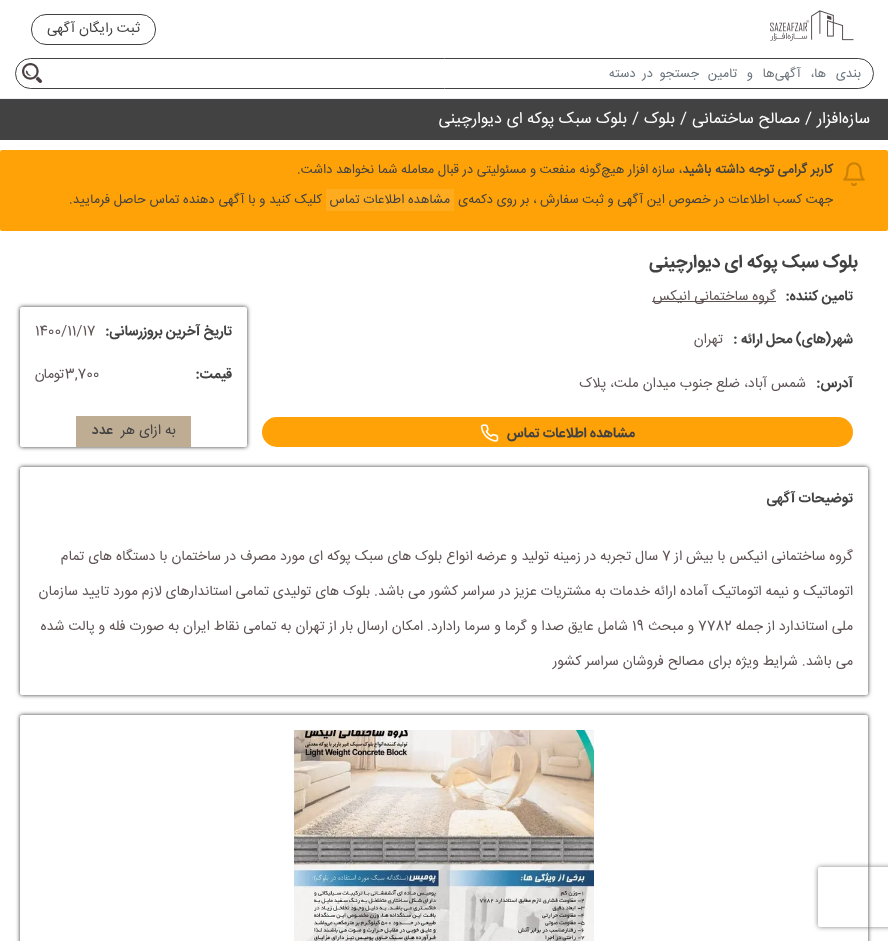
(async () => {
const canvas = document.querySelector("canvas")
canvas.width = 888
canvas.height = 941
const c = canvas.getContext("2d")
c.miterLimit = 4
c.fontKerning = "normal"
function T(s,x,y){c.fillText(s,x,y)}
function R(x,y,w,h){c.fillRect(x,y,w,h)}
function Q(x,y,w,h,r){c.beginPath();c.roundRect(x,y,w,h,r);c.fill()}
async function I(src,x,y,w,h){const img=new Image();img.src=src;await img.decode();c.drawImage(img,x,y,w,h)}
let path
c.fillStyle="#fff"
R(0,0,888,941)
await I("1.png",770,10,84,31)
c.beginPath()
c.roundRect(31.5,14.5,124,30,14.5)
c.strokeStyle="#424242"
c.stroke()
c.direction="rtl"
c.font="14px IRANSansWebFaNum"
c.fillStyle="#424242"
T("ثبت رایگان آگهی",140,32)
c.fillStyle="#ebedf2"
R(0,98,888,1)
c.beginPath()
c.roundRect(15.5,58.5,858,30,15)
c.stroke()
c.wordSpacing="6px"
c.font="13px IRANSansWebFaNum"
c.fillStyle="#6c757d"
T("بندی ها، آگهی‌ها و تامین",861,77)
c.wordSpacing="3px"
T("جستجو در دسته",699,77)
await I("2.png",22,63,20,20)
c.fillStyle="#424242"
R(0,99,888,41)
c.wordSpacing="0px"
c.font="16px IRANSansWebFaNum"
c.fillStyle="#fff"
T("سازه‌افزار",870,123)
c.direction="ltr"
T("/",805,123)
c.direction="rtl"
T("مصالح ساختمانی",800,123)
c.direction="ltr"
T("/",680,123)
c.direction="rtl"
T("بلوک",675,123)
c.direction="ltr"
T("/",632,123)
c.direction="rtl"
T("بلوک سبک پوکه ای دیوارچینی",627,123)
c.fillStyle="#ffa207"
Q(0,150,888,81,2)
await I("3.png",843,162,22,24)
c.font="bold 13px 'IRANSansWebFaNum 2'"
c.fillStyle="#424242"
T("کاربر گرامی توجه داشته باشید",833,173)
c.font="13px IRANSansWebFaNum"
T("، سازه افزار هیچ‌گونه منفعت و مسئولیتی در قبال معامله شما نخواهد داشت.",682,173)
T("جهت کسب اطلاعات در خصوص این آگهی و ثبت سفارش ، بر روی دکمه‌ی",833,203)
c.fillStyle="#ffab20"
R(326,189,128,22)
c.fillStyle="#424242"
T("مشاهده اطلاعات تماس",450,203)
T("کلیک کنید و با آگهی دهنده تماس حاصل فرمایید.",322,203)
c.font="bold 18px IRANSansWebFaNum"
T("بلوک سبک پوکه ای دیوارچینی",858,267)
c.font="bold 14px IRANSansWebFaNum"
T("تامین کننده:",853,300)
c.fillStyle="#5f5355"
R(652,301,124,1)
c.font="14px IRANSansWebFaNum"
T("گروه ساختمانی انیکس",776,300)
c.font="bold 14px IRANSansWebFaNum"
c.fillStyle="#424242"
T("شهر(های) محل ارائه :",853,343)
c.font="14px IRANSansWebFaNum"
c.fillStyle="#5f5355"
T("تهران",723,343)
c.font="bold 14px IRANSansWebFaNum"
c.fillStyle="#424242"
T("آدرس:",853,387)
c.font="14px IRANSansWebFaNum"
c.fillStyle="#5f5355"
T("شمس آباد، ضلع جنوب میدان ملت، پلاک",806,387)
c.fillStyle="#ffa207"
Q(262,417,591,30,15)
c.font="bold 14px IRANSansWebFaNum"
c.fillStyle="#424242"
T("مشاهده اطلاعات تماس",635,437)
await I("4.png",480,424,19,18)
c.save()
path = new Path2D("M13 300h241v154h-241zm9 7h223c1 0 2 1 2 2v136c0 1-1 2-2 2h-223c-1 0-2-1-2-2v-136c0-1 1-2 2-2z")
c.clip(path,"evenodd")
c.fillStyle="#000000cc"
c.filter="blur(2px)"
c.beginPath()
c.roundRect(20,307,227,140,2)
c.fill()
c.filter="none"
c.restore()
T("تاریخ آخرین بروزرسانی:",232,335)
c.direction="ltr"
c.font="14px IRANSansWebFaNum"
c.fillStyle="#5f5355"
T("1400/11/17",35,335)
c.direction="rtl"
c.font="bold 14px IRANSansWebFaNum"
c.fillStyle="#424242"
T("قیمت:",232,378)
c.direction="ltr"
c.font="14px IRANSansWebFaNum"
c.fillStyle="#5f5355"
T("3,700",65,378)
c.direction="rtl"
T("تومان",65,378)
c.fillStyle="#beac93"
R(76,416,115,31)
c.fillStyle="#424242"
T("به ازای هر",176,434)
c.font="bold 14px 'IRANSansWebFaNum 2'"
T("عدد",113,434)
c.save()
path = new Path2D("M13 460h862v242h-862zm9 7h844c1 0 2 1 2 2v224c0 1-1 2-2 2h-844c-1 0-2-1-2-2v-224c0-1 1-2 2-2z")
c.clip(path,"evenodd")
c.fillStyle="#000000cc"
c.filter="blur(2px)"
c.beginPath()
c.roundRect(20,467,848,228,2)
c.fill()
c.filter="none"
c.restore()
c.font="bold 14px IRANSansWebFaNum"
T("توضیحات آگهی",853,502)
c.font="14px IRANSansWebFaNum"
c.fillStyle="#5f5355"
T("گروه ساختمانی انیکس با بیش از",853,560)
c.direction="ltr"
T("7",662,560)
c.direction="rtl"
T("سال تجربه در زمینه تولید و عرضه انواع بلوک های سبک پوکه ای مورد مصرف در ساختمان با دستگاه های تمام",658,560)
T("اتوماتیک و نیمه اتوماتیک آماده ارائه خدمات به مشتریات عزیز در سراسر کشور می باشد. بلوک های تولیدی تمامی استاندارهای لازم مورد تایید سازمان",853,595)
T("ملی استاندارد از جمله",853,630)
c.direction="ltr"
T("7782",698,630)
c.direction="rtl"
T("و مبحث",694,630)
c.direction="ltr"
T("19",632,630)
c.direction="rtl"
T("شامل عایق صدا و گرما و سرما رادارد. امکان ارسال بار از تهران به تمامی نقاط ایران به صورت فله و پالت شده",628,630)
T("می باشد. شرایط ویژه برای مصالح فروشان سراسر کشور",853,665)
c.save()
path = new Path2D("M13 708h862v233h-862zm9 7h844c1 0 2 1 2 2v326c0 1-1 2-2 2h-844c-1 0-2-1-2-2v-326c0-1 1-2 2-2z")
c.clip(path,"evenodd")
c.fillStyle="#000000cc"
c.filter="blur(2px)"
c.beginPath()
c.roundRect(20,715,848,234,2)
c.fill()
c.filter="none"
c.restore()
await I("5.png",294,730,300,211)
c.save()
path = new Path2D("M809 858h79v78h-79zm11 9h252c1 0 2 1 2 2v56c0 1-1 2-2 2h-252c-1 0-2-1-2-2v-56c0-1 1-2 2-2z")
c.clip(path,"evenodd")
c.fillStyle="#808080"
c.filter="blur(2.5px)"
c.beginPath()
c.roundRect(818,867,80,60,2)
c.fill()
c.filter="none"
c.restore()
})()
